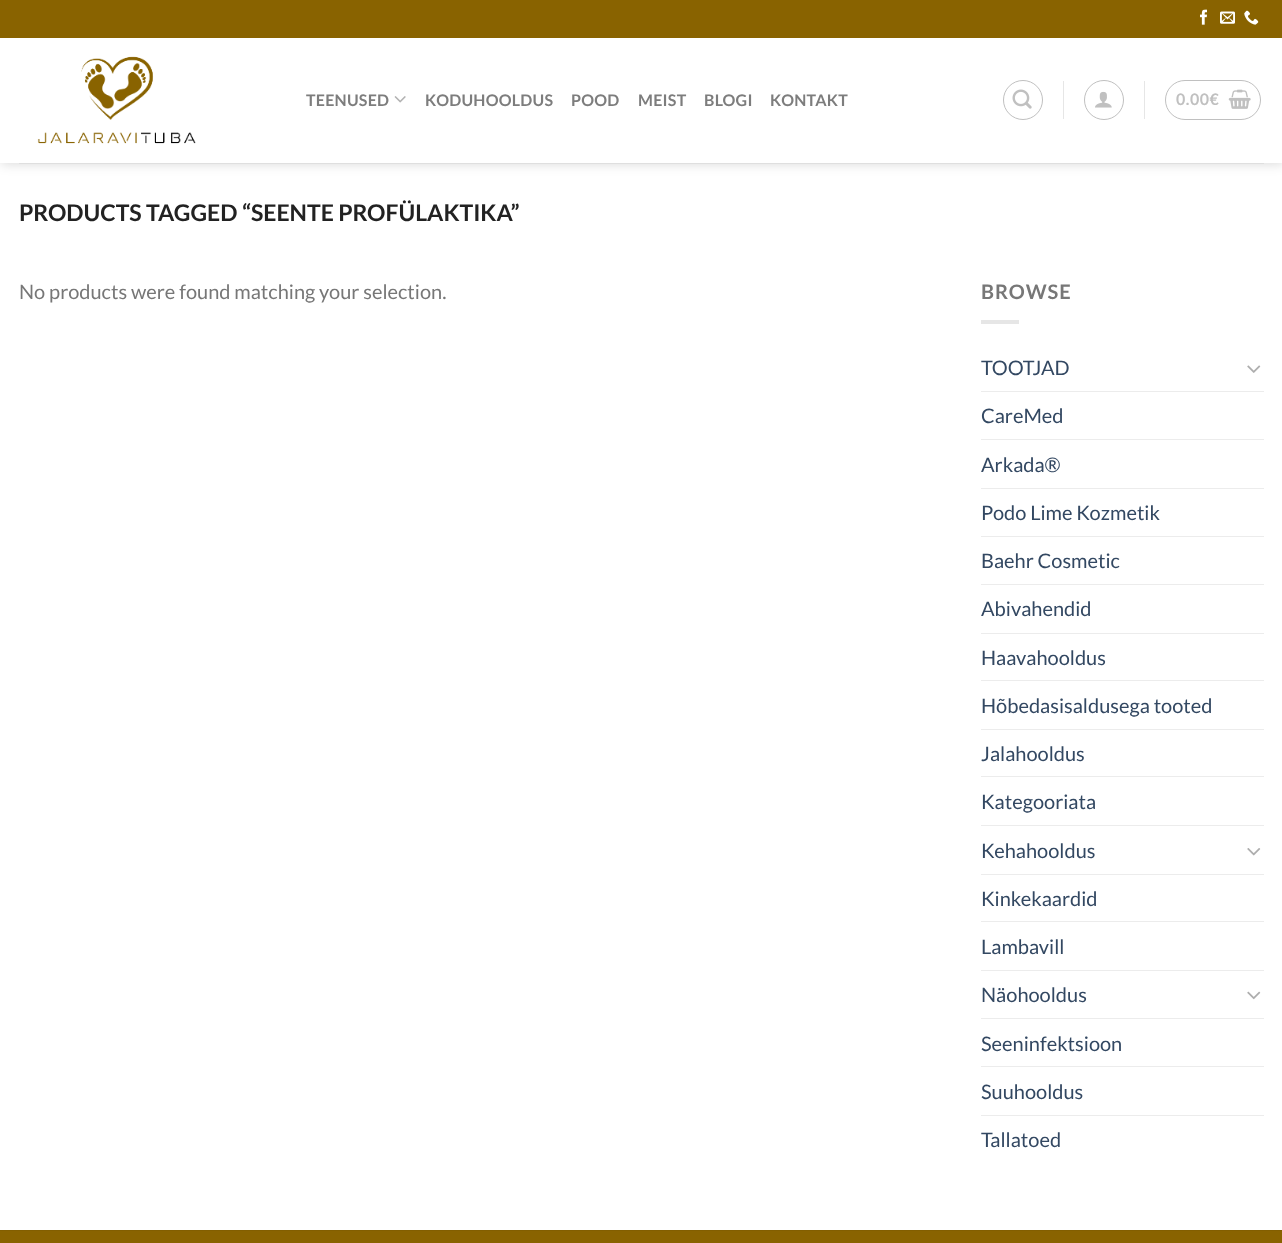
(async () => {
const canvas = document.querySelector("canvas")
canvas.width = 1282
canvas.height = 1243
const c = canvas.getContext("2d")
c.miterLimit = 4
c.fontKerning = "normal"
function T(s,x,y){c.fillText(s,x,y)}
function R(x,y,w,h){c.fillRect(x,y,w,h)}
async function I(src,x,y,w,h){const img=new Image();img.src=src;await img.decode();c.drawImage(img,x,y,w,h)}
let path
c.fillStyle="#fff"
R(0,0,1282,1243)
c.save()
path = new Path2D("M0 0h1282v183h-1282zm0 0h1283v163h-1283z")
c.clip(path,"evenodd")
c.fillStyle="#00000026"
c.filter="blur(6px)"
c.beginPath()
c.rect(1,1,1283,163)
c.fill()
c.filter="none"
c.restore()
c.fillStyle="#896300"
R(0,0,1282,38)
await I("1.png",1200,9,7,16)
await I("2.png",1220,11,15,13)
await I("3.png",1244,10,15,15)
await I("4.png",37,56,159,88)
c.letterSpacing="0.25px"
c.font="bold 16px Lato"
c.fillStyle="#7d7d7d"
T("TEENUSED",306,106)
await I("5.png",394,96,12,7)
T("KODUHOOLDUS",425,106)
T("POOD",571,106)
T("MEIST",638,106)
T("BLOGI",704,106)
T("KONTAKT",770,106)
c.beginPath()
c.arc(1023,100,19.5,0,7)
c.strokeStyle="#c0c0c0"
c.stroke()
await I("6.png",1012,89,20,20)
c.fillStyle="#e6e6e6"
R(1063,81,1,38)
c.beginPath()
c.arc(1104,100,19.5,0,7)
c.stroke()
await I("7.png",1095,91,17,17)
R(1144,81,1,38)
c.beginPath()
c.roundRect(1165.5,80.5,95,39,19.5)
c.stroke()
c.letterSpacing="0.5px"
c.fillStyle="#c0c0c0"
T("0.00€",1176,105)
await I("8.png",1228,89,23,20)
c.fillStyle="#dfdfdf"
R(19,163,1245,1)
c.fillStyle="#ffffffe6"
R(0,162,1282,1)
c.letterSpacing="0px"
c.font="bold 23px Lato"
c.fillStyle="#222"
T("PRODUCTS TAGGED “SEENTE PROFÜLAKTIKA”",19,221)
c.font="20px Lato"
c.fillStyle="#777"
T("No products were found matching your selection.",19,299)
c.letterSpacing="1px"
c.font="bold 20px Lato"
T("BROWSE",981,299)
c.fillStyle="#e6e6e6"
R(981,320,38,4)
c.letterSpacing="0px"
c.font="20px Lato"
c.fillStyle="#334862"
T("TOOTJAD",981,375)
await I("9.png",1247,365,14,8)
c.fillStyle="#ececec"
R(981,391,283,1)
c.fillStyle="#334862"
T("CareMed",981,423)
c.fillStyle="#ececec"
R(981,439,283,1)
c.fillStyle="#334862"
T("Arkada®",981,472)
c.fillStyle="#ececec"
R(981,488,283,1)
c.fillStyle="#334862"
T("Podo Lime Kozmetik",981,520)
c.fillStyle="#ececec"
R(981,536,283,1)
c.fillStyle="#334862"
T("Baehr Cosmetic",981,568)
c.fillStyle="#ececec"
R(981,584,283,1)
c.fillStyle="#334862"
T("Abivahendid",981,616)
c.fillStyle="#ececec"
R(981,633,283,1)
c.fillStyle="#334862"
T("Haavahooldus",981,665)
c.fillStyle="#ececec"
R(981,680,283,1)
c.fillStyle="#334862"
T("Hõbedasisaldusega tooted",981,713)
c.fillStyle="#ececec"
R(981,729,283,1)
c.fillStyle="#334862"
T("Jalahooldus",981,761)
c.fillStyle="#ececec"
R(981,776,283,1)
c.fillStyle="#334862"
T("Kategooriata",981,809)
c.fillStyle="#ececec"
R(981,825,283,1)
c.fillStyle="#334862"
T("Kehahooldus",981,858)
await I("10.png",1247,848,14,8)
c.fillStyle="#ececec"
R(981,874,283,1)
c.fillStyle="#334862"
T("Kinkekaardid",981,906)
c.fillStyle="#ececec"
R(981,921,283,1)
c.fillStyle="#334862"
T("Lambavill",981,954)
c.fillStyle="#ececec"
R(981,970,283,1)
c.fillStyle="#334862"
T("Näohooldus",981,1002)
await I("11.png",1247,991,14,9)
c.fillStyle="#ececec"
R(981,1018,283,1)
c.fillStyle="#334862"
T("Seeninfektsioon",981,1051)
c.fillStyle="#ececec"
R(981,1066,283,1)
c.fillStyle="#334862"
T("Suuhooldus",981,1099)
c.fillStyle="#ececec"
R(981,1115,283,1)
c.fillStyle="#334862"
T("Tallatoed",981,1147)
c.fillStyle="#896300"
R(0,1231,1282,12)
c.fillStyle="#825e00"
R(0,1230,1282,1)
})()
